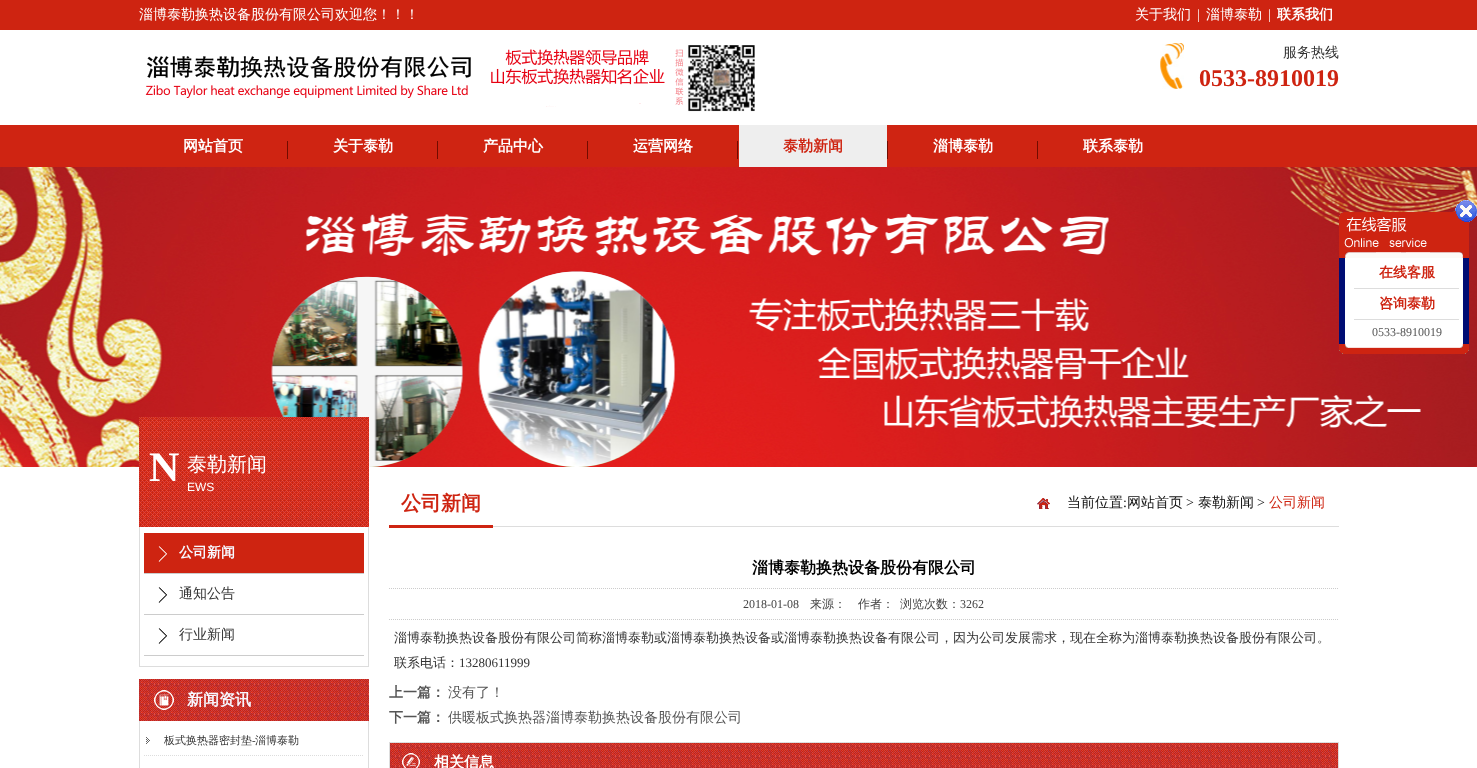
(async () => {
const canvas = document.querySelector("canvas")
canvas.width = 1477
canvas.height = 768
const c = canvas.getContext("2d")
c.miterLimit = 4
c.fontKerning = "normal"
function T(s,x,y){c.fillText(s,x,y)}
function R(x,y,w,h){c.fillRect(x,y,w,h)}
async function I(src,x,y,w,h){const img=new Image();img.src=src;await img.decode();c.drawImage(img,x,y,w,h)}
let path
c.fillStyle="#fff"
R(0,0,1477,768)
c.fillStyle="#ce2411"
R(0,0,1477,30)
c.font="500 14px WenQuanYi Zen Hei"
c.fillStyle="#fff"
T("淄博泰勒换热设备股份有限公司欢迎您！！！",139,19)
T("关于我们",1135,19)
c.font="14px Liberation Serif"
T("|",1197,19)
c.font="500 14px WenQuanYi Zen Hei"
T("淄博泰勒",1206,19)
c.font="14px Liberation Serif"
T("|",1268,19)
c.font="bold 14px WenQuanYi Zen Hei"
T("联系我们",1277,19)
await I("1.png",145,45,610,67)
await I("2.png",1160,43,24,46)
c.font="500 14px WenQuanYi Zen Hei"
c.fillStyle="#333"
T("服务热线",1283,57)
c.font="bold 24px Liberation Serif"
c.fillStyle="#ce2411"
T("0533-8910019",1199,86)
c.fillStyle="#cf2412"
R(0,125,1477,42)
c.font="bold 15px WenQuanYi Zen Hei"
c.fillStyle="#fff"
T("网站首页",183,151)
c.fillStyle="#720c00"
R(287,141,1,18)
c.fillStyle="#fff"
T("关于泰勒",333,151)
c.fillStyle="#720c00"
R(437,141,1,18)
c.fillStyle="#fff"
T("产品中心",483,151)
c.fillStyle="#720c00"
R(587,141,1,18)
c.fillStyle="#fff"
T("运营网络",633,151)
c.fillStyle="#720c00"
R(737,141,1,18)
c.fillStyle="#eee"
R(739,125,148,42)
c.fillStyle="#ce2411"
T("泰勒新闻",783,151)
c.fillStyle="#720c00"
R(887,141,1,18)
c.fillStyle="#fff"
T("淄博泰勒",933,151)
c.fillStyle="#720c00"
R(1037,141,1,18)
c.fillStyle="#fff"
T("联系泰勒",1083,151)
await I("3.png",0,167,1477,300)
await I("4.png",1339,200,138,58)
await I("5.png",1339,258,130,86)
c.fillStyle="#ddd"
R(1354,288,105,1)
c.font="bold 14px WenQuanYi Zen Hei"
c.fillStyle="#ce2411"
T("在线客服",1379,277)
c.fillStyle="#ddd"
R(1354,319,105,1)
c.fillStyle="#ce2411"
T("咨询泰勒",1379,308)
c.font="12px Liberation Serif"
c.fillStyle="#555"
T("0533-8910019",1372,336)
await I("6.png",1339,344,130,10)
await I("7.png",139,417,230,110)
c.font="bold 42px Liberation Serif"
c.fillStyle="#fff"
T("N",149,481)
c.font="500 20px WenQuanYi Zen Hei"
T("泰勒新闻",187,471)
c.font="12px Liberation Sans"
T("EWS",187,491)
c.fillStyle="#ddd"
R(368,527,1,140)
R(139,666,230,1)
R(139,527,1,140)
c.fillStyle="#ccc"
R(144,573,220,1)
c.fillStyle="#ce2411"
R(144,533,220,40)
await I("8.png",158,546,9,16)
c.font="bold 14px WenQuanYi Zen Hei"
c.fillStyle="#f7f8ff"
T("公司新闻",179,557)
await I("9.png",158,587,9,16)
c.fillStyle="#ccc"
R(144,614,220,1)
c.font="500 14px WenQuanYi Zen Hei"
c.fillStyle="#333"
T("通知公告",179,598)
await I("9.png",158,628,9,16)
c.fillStyle="#ccc"
R(144,655,220,1)
c.fillStyle="#333"
T("行业新闻",179,639)
await I("10.png",139,679,230,42)
await I("11.png",154,690,20,20)
c.font="bold 16px WenQuanYi Zen Hei"
c.fillStyle="#f7f8ff"
T("新闻资讯",187,705)
c.fillStyle="#ddd"
R(368,721,1,47)
R(139,721,1,47)
await I("12.png",146,737,4,7)
path = new Path2D("M144 755.5h220")
c.strokeStyle="#ddd"
c.setLineDash([1,1])
c.stroke(path)
c.font="500 11px WenQuanYi Zen Hei"
c.fillStyle="#333"
T("板式换热器密封垫",164,744)
c.font="11px Liberation Serif"
T("-",252,744)
c.font="500 11px WenQuanYi Zen Hei"
T("淄博泰勒",255,744)
c.fillStyle="#ddd"
R(493,526,846,1)
c.fillStyle="#ce2411"
R(389,525,104,3)
c.font="bold 20px WenQuanYi Zen Hei"
T("公司新闻",401,510)
await I("13.png",1037,498,13,11)
c.font="500 14px WenQuanYi Zen Hei"
c.fillStyle="#111"
T("当前位置",1067,507)
c.font="14px Liberation Serif"
T(":",1123,507)
c.font="500 14px WenQuanYi Zen Hei"
T("网站首页",1127,507)
c.font="14px Liberation Serif"
T(">",1186,507)
c.font="500 14px WenQuanYi Zen Hei"
T("泰勒新闻",1198,507)
c.font="14px Liberation Serif"
T(">",1257,507)
c.font="500 14px WenQuanYi Zen Hei"
c.fillStyle="#ce2411"
T("公司新闻",1269,507)
path = new Path2D("M389 588.5h950")
c.strokeStyle="#ccc"
c.stroke(path)
c.font="bold 16px WenQuanYi Zen Hei"
c.fillStyle="#010101"
T("淄博泰勒换热设备股份有限公司",752,573)
path = new Path2D("M389 619.5h950")
c.stroke(path)
c.font="12px Liberation Serif"
c.fillStyle="#444"
T("2018-01-08",743,608)
c.font="500 12px WenQuanYi Zen Hei"
T("来源：",810,608)
T("作者：",858,608)
T("浏览次数：",900,608)
c.font="12px Liberation Serif"
T("3262",960,608)
c.font="500 13px WenQuanYi Zen Hei"
c.fillStyle="#333"
T("淄博泰勒换热设备股份有限公司简称淄博泰勒或淄博泰勒换热设备或淄博泰勒换热设备有限公司，因为公司发展需求，现在全称为淄博泰勒换热设备股份有限公司。",394,642)
T("联系电话：",394,667)
c.font="13px Liberation Serif"
T("13280611999",459,667)
c.font="bold 14px WenQuanYi Zen Hei"
c.fillStyle="#555"
T("上一篇：",389,697)
c.font="500 14px WenQuanYi Zen Hei"
T("没有了！",448,697)
c.font="bold 14px WenQuanYi Zen Hei"
T("下一篇：",389,722)
c.font="500 14px WenQuanYi Zen Hei"
T("供暖板式换热器淄博泰勒换热设备股份有限公司",448,722)
c.strokeStyle="#ddd"
c.setLineDash([])
c.strokeRect(389.5,742.5,949,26)
await I("14.png",390,743,948,25)
await I("15.png",402,753,18,15)
c.font="bold 15px WenQuanYi Zen Hei"
c.fillStyle="#fff"
T("相关信息",434,767)
})()
